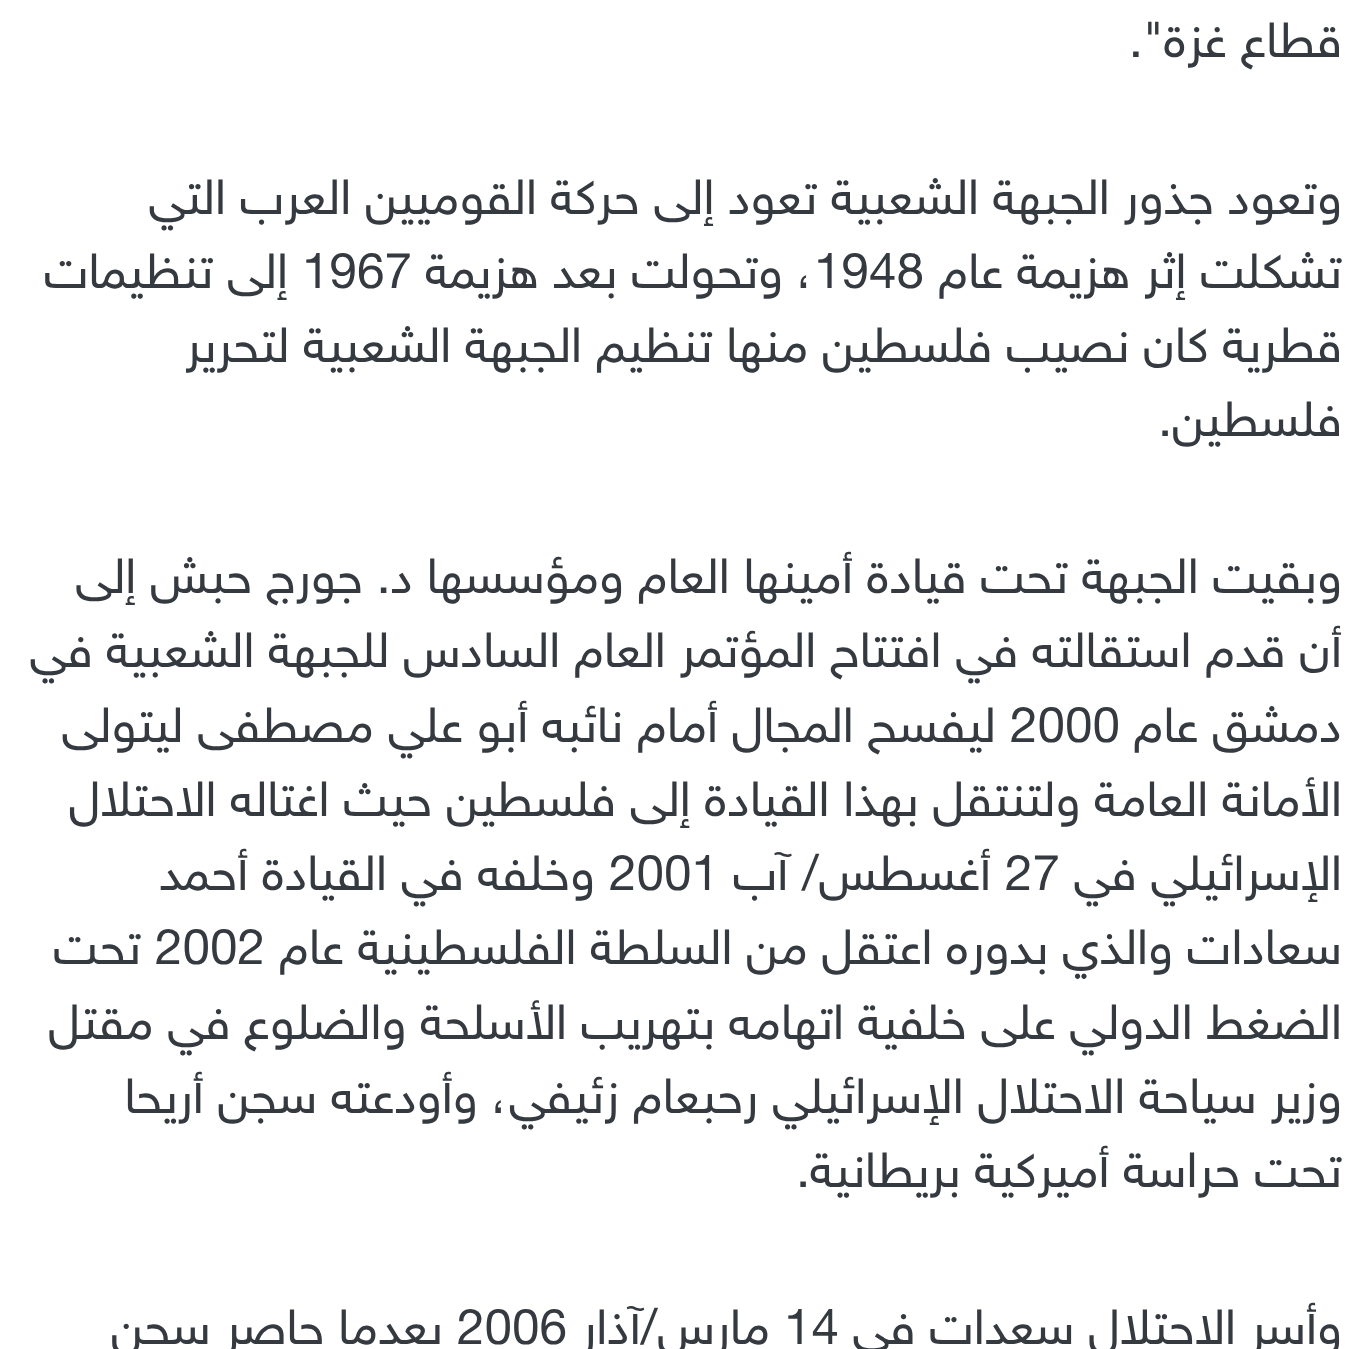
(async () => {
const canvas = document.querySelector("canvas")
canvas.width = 1367
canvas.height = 1349
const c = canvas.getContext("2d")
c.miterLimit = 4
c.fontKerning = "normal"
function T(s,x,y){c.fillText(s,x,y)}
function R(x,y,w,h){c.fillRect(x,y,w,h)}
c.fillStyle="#fff"
R(0,0,1367,1349)
c.direction="rtl"
c.font="49.5px 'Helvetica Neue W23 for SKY'"
c.fillStyle="#343a40"
T("قطاع غزة\".",1342,57)
T("وتعود جذور الجبهة الشعبية تعود إلى حركة القوميين العرب التي",1342,214)
T("تشكلت إثر هزيمة عام",1342,288)
c.direction="ltr"
T("1948",814,288)
c.direction="rtl"
T("، وتحولت بعد هزيمة",814,288)
c.direction="ltr"
T("1967",302,288)
c.direction="rtl"
T("إلى تنظيمات",288,288)
T("قطرية كان نصيب فلسطين منها تنظيم الجبهة الشعبية لتحرير",1342,362)
T("فلسطين.",1342,436)
T("وبقيت الجبهة تحت قيادة أمينها العام ومؤسسها د. جورج حبش إلى",1342,593)
T("أن قدم استقالته في افتتاح المؤتمر العام السادس للجبهة الشعبية في",1342,667)
T("دمشق عام",1342,742)
c.direction="ltr"
T("2000",1010,742)
c.direction="rtl"
T("ليفسح المجال أمام نائبه أبو علي مصطفى ليتولى",996,742)
T("الأمانة العامة ولتنتقل بهذا القيادة إلى فلسطين حيث اغتاله الاحتلال",1342,816)
T("الإسرائيلي في",1342,890)
c.direction="ltr"
T("27",1005,890)
c.direction="rtl"
T("أغسطس/ آب",991,890)
c.direction="ltr"
T("2001",609,890)
c.direction="rtl"
T("وخلفه في القيادة أحمد",595,890)
T("سعادات والذي بدوره اعتقل من السلطة الفلسطينية عام",1342,964)
c.direction="ltr"
T("2002",155,964)
c.direction="rtl"
T("تحت",141,964)
T("الضغط الدولي على خلفية اتهامه بتهريب الأسلحة والضلوع في مقتل",1342,1039)
T("وزير سياحة الاحتلال الإسرائيلي رحبعام زئيفي، وأودعته سجن أريحا",1342,1113)
T("تحت حراسة أميركية بريطانية.",1342,1187)
T("وأسر الاحتلال سعدات في",1342,1344)
c.direction="ltr"
T("14",784,1344)
c.direction="rtl"
T("مارس/آذار",770,1344)
c.direction="ltr"
T("2006",457,1344)
c.direction="rtl"
T("بعدما حاصر سجن",443,1344)
})()
